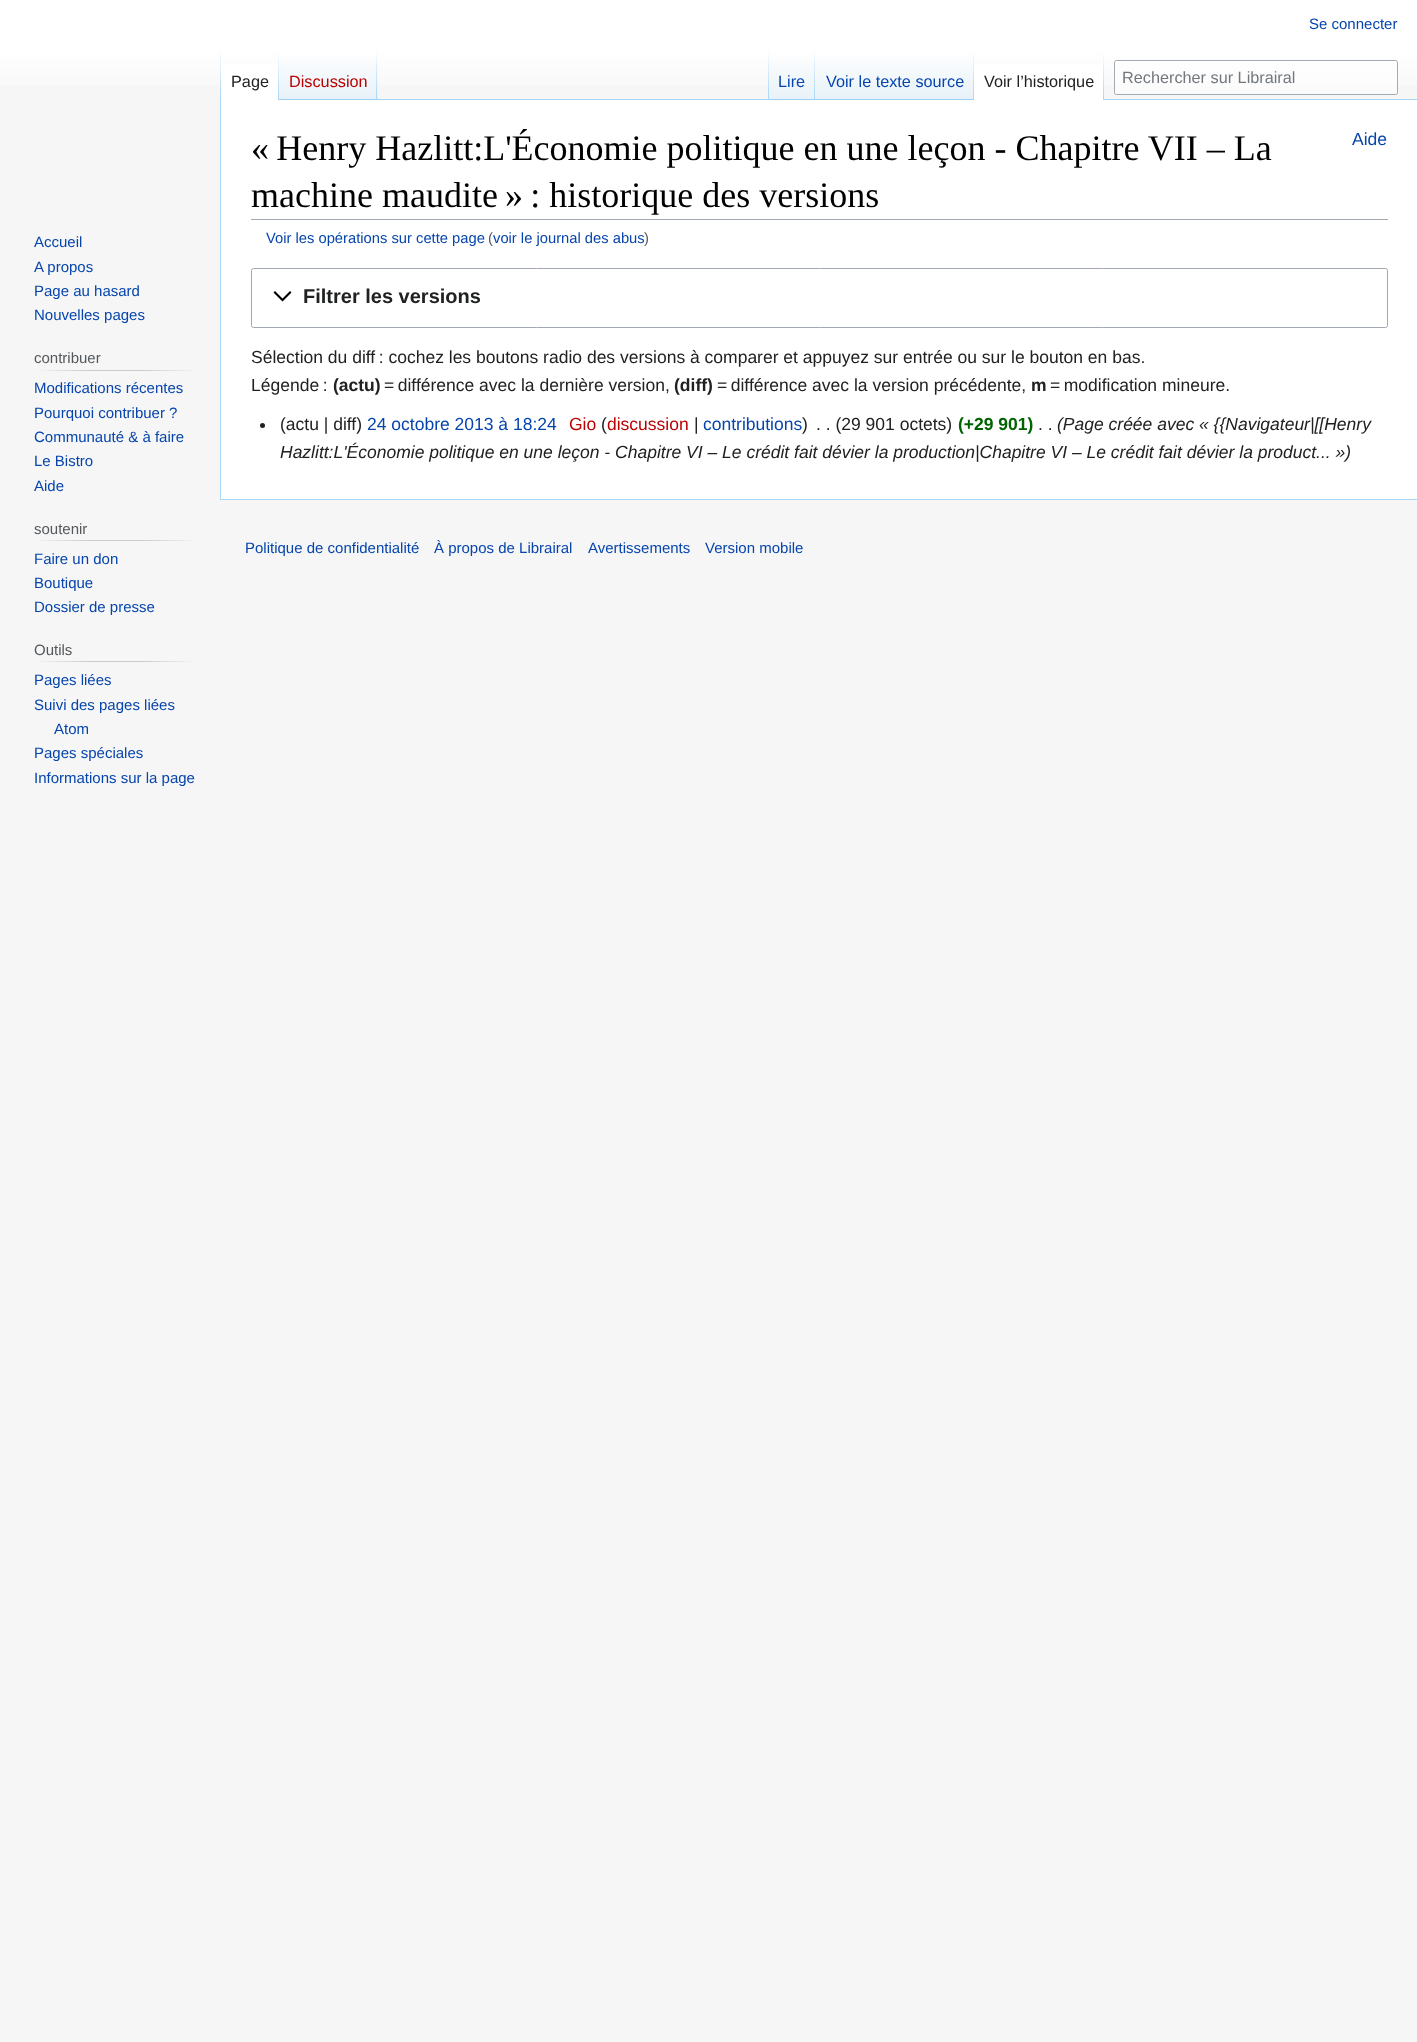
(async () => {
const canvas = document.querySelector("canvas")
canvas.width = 1417
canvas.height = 2042
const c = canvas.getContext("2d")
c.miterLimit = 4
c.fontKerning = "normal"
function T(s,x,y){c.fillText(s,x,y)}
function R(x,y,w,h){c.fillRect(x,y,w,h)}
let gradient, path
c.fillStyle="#f6f6f6"
R(0,0,1417,2042)
gradient = c.createLinearGradient(709,0,709,100)
gradient.addColorStop(.5,"#fff")
gradient.addColorStop(1,"#f6f6f6")
c.fillStyle = gradient
R(0,0,1417,86)
c.font="15px Liberation Sans"
c.fillStyle="#0645ad"
T("Se connecter",1309,29)
c.fillStyle="#a7d7f9"
R(220,499,1197,1)
R(220,99,1,401)
gradient = c.createLinearGradient(221,50,221,100)
gradient.addColorStop(0,"#a7d7f900")
gradient.addColorStop(1,"#a7d7f9")
c.fillStyle = gradient
R(220,50,1,50)
c.fillStyle="#fff"
R(221,64,57,36)
gradient = c.createLinearGradient(278,50,278,100)
gradient.addColorStop(0,"#fff")
gradient.addColorStop(1,"#a7d7f9")
c.fillStyle = gradient
R(278,50,1,50)
c.font="16.25px Liberation Sans"
c.fillStyle="#202122"
T("Page",231,87)
gradient = c.createLinearGradient(328,100,328,50)
gradient.addColorStop(0,"#77c1f6")
gradient.addColorStop(.03,"#e8f2f8")
gradient.addColorStop(1,"#fff")
c.fillStyle = gradient
R(279,57,99,43)
gradient = c.createLinearGradient(377,50,377,100)
gradient.addColorStop(0,"#a7d7f900")
gradient.addColorStop(1,"#a7d7f9")
c.fillStyle = gradient
R(376,50,1,50)
c.fillStyle="#ba0000"
T("Discussion",289,87)
c.fillStyle="#a7d7f9"
R(378,99,1039,1)
gradient = c.createLinearGradient(768,50,768,100)
gradient.addColorStop(0,"#a7d7f900")
gradient.addColorStop(1,"#a7d7f9")
c.fillStyle = gradient
R(768,50,1,50)
gradient = c.createLinearGradient(792,100,792,50)
gradient.addColorStop(0,"#77c1f6")
gradient.addColorStop(.03,"#e8f2f8")
gradient.addColorStop(1,"#fff")
c.fillStyle = gradient
R(769,57,46,43)
gradient = c.createLinearGradient(814,50,814,100)
gradient.addColorStop(0,"#a7d7f900")
gradient.addColorStop(1,"#a7d7f9")
c.fillStyle = gradient
R(814,50,1,50)
c.fillStyle="#0645ad"
T("Lire",778,87)
gradient = c.createLinearGradient(894,100,894,50)
gradient.addColorStop(0,"#77c1f6")
gradient.addColorStop(.03,"#e8f2f8")
gradient.addColorStop(1,"#fff")
c.fillStyle = gradient
R(815,57,159,43)
gradient = c.createLinearGradient(973,50,973,100)
gradient.addColorStop(0,"#a7d7f900")
gradient.addColorStop(1,"#a7d7f9")
c.fillStyle = gradient
R(973,50,1,50)
c.fillStyle="#0645ad"
T("Voir le texte source",826,87)
c.fillStyle="#fff"
R(974,64,129,36)
gradient = c.createLinearGradient(1103,50,1103,100)
gradient.addColorStop(0,"#fff")
gradient.addColorStop(1,"#a7d7f9")
c.fillStyle = gradient
R(1103,50,1,50)
c.fillStyle="#202122"
T("Voir l’historique",984,87)
c.fillStyle="#ffffff80"
c.beginPath()
c.roundRect(1114.5,60.5,283,34,2)
c.fill()
c.strokeStyle="#a2a9b1"
c.stroke()
c.fillStyle="#72777d"
T("Rechercher sur Librairal",1122,83)
c.font="15px Liberation Sans"
c.fillStyle="#0645ad"
T("Accueil",34,247)
T("A propos",34,272)
T("Page au hasard",34,296)
T("Nouvelles pages",34,320)
gradient = c.createLinearGradient(34,371,198,371)
gradient.addColorStop(0,"#f6f6f6")
gradient.addColorStop(.33,"#c8ccd1")
gradient.addColorStop(.66,"#c8ccd1")
gradient.addColorStop(1,"#f6f6f6")
c.fillStyle = gradient
R(34,370,164,1)
c.fillStyle="#54595d"
T("contribuer",34,363)
c.fillStyle="#0645ad"
T("Modifications récentes",34,393)
T("Pourquoi contribuer ?",34,418)
T("Communauté & à faire",34,442)
T("Le Bistro",34,466)
T("Aide",34,491)
gradient = c.createLinearGradient(34,541,198,541)
gradient.addColorStop(0,"#f6f6f6")
gradient.addColorStop(.33,"#c8ccd1")
gradient.addColorStop(.66,"#c8ccd1")
gradient.addColorStop(1,"#f6f6f6")
c.fillStyle = gradient
R(34,540,164,1)
c.fillStyle="#54595d"
T("soutenir",34,534)
c.fillStyle="#0645ad"
T("Faire un don",34,564)
T("Boutique",34,588)
T("Dossier de presse",34,612)
gradient = c.createLinearGradient(34,662,198,662)
gradient.addColorStop(0,"#f6f6f6")
gradient.addColorStop(.33,"#c8ccd1")
gradient.addColorStop(.66,"#c8ccd1")
gradient.addColorStop(1,"#f6f6f6")
c.fillStyle = gradient
R(34,661,164,1)
c.fillStyle="#54595d"
T("Outils",34,655)
c.fillStyle="#0645ad"
T("Pages liées",34,685)
T("Suivi des pages liées",34,710)
T("Atom",54,734)
T("Pages spéciales",34,758)
T("Informations sur la page",34,783)
c.fillStyle="#fff"
R(221,100,1196,399)
c.fillStyle="#a2a9b1"
R(251,219,1137,1)
c.font="36px Liberation Serif"
c.fillStyle="#000"
T("« Henry Hazlitt:L'Économie politique en une leçon - Chapitre VII – La",251,160)
T("machine maudite » : historique des versions",251,207)
c.font="17.5px Liberation Sans"
c.fillStyle="#0645ad"
T("Aide",1352,145)
c.font="14.75px Liberation Sans"
T("Voir les opérations sur cette page",266,243)
c.fillStyle="#54595d"
T("(",488,243)
c.fillStyle="#0645ad"
T("voir le journal des abus",493,243)
c.fillStyle="#54595d"
T(")",644,243)
c.beginPath()
c.roundRect(251.5,268.5,1136,59,2)
c.stroke()
c.fillStyle="#000"
path = new Path2D("M290 291l-7.5 7.5l-7.5-7.5l-1.5 1.5l9 9l9-9z")
c.fill(path)
c.font="bold 20px Liberation Sans"
c.fillStyle="#202122"
T("Filtrer les versions",303,303)
c.font="17.5px Liberation Sans"
T("Sélection du diff : cochez les boutons radio des versions à comparer et appuyez sur entrée ou sur le bouton en bas.",251,363)
T("Légende :",251,391)
c.font="bold 17.5px Liberation Sans"
T("(actu)",333,391)
c.font="17.5px Liberation Sans"
T("= différence avec la dernière version,",384,391)
c.font="bold 17.5px Liberation Sans"
T("(diff)",674,391)
c.font="17.5px Liberation Sans"
T("= différence avec la version précédente,",717,391)
c.font="bold 17.5px Liberation Sans"
T("m",1031,391)
c.font="17.5px Liberation Sans"
T("= modification mineure.",1050,391)
c.beginPath()
c.arc(262.5,425.5,2.5,0,7)
c.fill()
T("(actu | diff)",280,430)
c.fillStyle="#0645ad"
T("24 octobre 2013 à 18:24",367,430)
c.fillStyle="#ba0000"
T("Gio",569,430)
c.fillStyle="#202122"
T("(",601,430)
c.fillStyle="#ba0000"
T("discussion",607,430)
c.fillStyle="#202122"
T("|",694,430)
c.fillStyle="#0645ad"
T("contributions",703,430)
c.fillStyle="#202122"
T(")",802,430)
T(". . (29 901 octets)",816,430)
c.font="bold 17.5px Liberation Sans"
c.fillStyle="#006400"
T("(+29 901)",958,430)
c.font="italic 17.5px Liberation Sans"
c.fillStyle="#202122"
T("(Page créée avec « {{Navigateur|[[Henry",1057,430)
c.font="17.5px Liberation Sans"
T(". .",1038,430)
c.font="italic 17.5px Liberation Sans"
T("Hazlitt:L'Économie politique en une leçon - Chapitre VI – Le crédit fait dévier la production|Chapitre VI – Le crédit fait dévier la product... »)",280,458)
c.font="15px Liberation Sans"
c.fillStyle="#0645ad"
T("Politique de confidentialité",245,553)
T("À propos de Librairal",434,553)
T("Avertissements",588,553)
T("Version mobile",705,553)
})()
